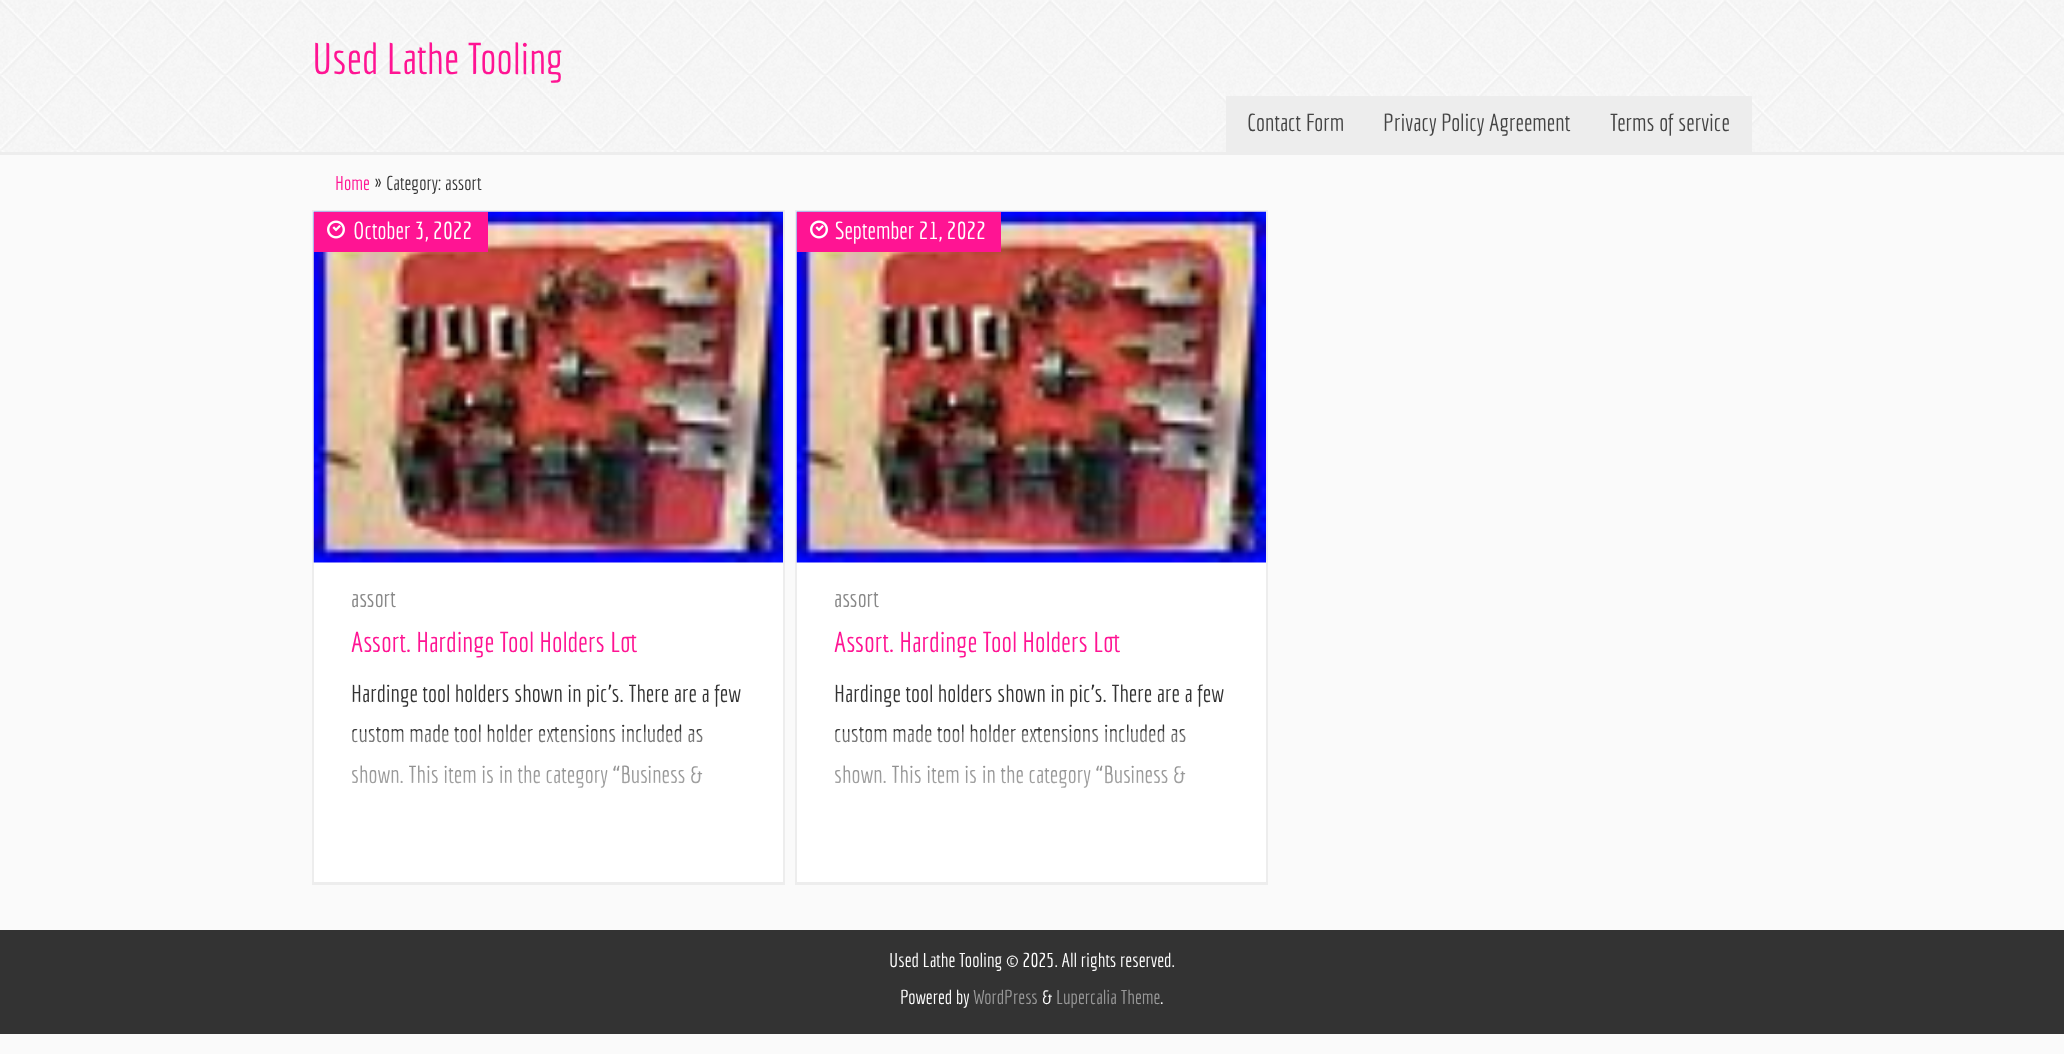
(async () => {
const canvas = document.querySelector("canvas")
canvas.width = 2064
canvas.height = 1054
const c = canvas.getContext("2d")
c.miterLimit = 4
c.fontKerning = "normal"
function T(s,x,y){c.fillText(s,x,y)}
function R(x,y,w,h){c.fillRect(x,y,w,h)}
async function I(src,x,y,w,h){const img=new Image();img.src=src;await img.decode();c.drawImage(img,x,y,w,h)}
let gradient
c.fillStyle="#fafafa"
R(0,0,2064,1054)
await I("1.png",0,0,2064,152)
c.fillStyle="#ededed"
R(0,152,2064,3)
c.font="43.25px Economica"
c.fillStyle="#ff1493"
T("Used Lathe Tooling",312,74)
c.fillStyle="#ededed"
R(1226,96,526,56)
c.font="24px Economica"
c.fillStyle="#444"
T("Contact Form",1247,131)
T("Privacy Policy Agreement",1383,131)
T("Terms of service",1610,131)
c.font="19.5px Economica"
c.fillStyle="#ff1493"
T("Home",335,190)
c.font="24px Economica"
c.fillStyle="#333"
T("»",374,190)
c.font="19.5px Economica"
T("Category: assort",386,190)
c.fillStyle="#fff"
R(314,562,469,319)
c.fillStyle="#ededed"
R(312,210,473,2)
R(783,210,2,675)
R(312,882,473,3)
R(312,210,2,675)
await I("2.png",313,211,470,352)
c.fillStyle="#ff1493"
R(314,212,174,40)
await I("3.png",327,220,18,19)
c.font="24px Economica"
c.fillStyle="#fff"
T("October 3, 2022",353,239)
c.fillStyle="#888"
T("assort",351,607)
c.font="28px Economica"
c.fillStyle="#ff1493"
T("Assort. Hardinge Tool Holders Lot",351,652)
c.font="24px Economica"
c.fillStyle="#333"
T("Hardinge tool holders shown in pic’s. There are a few",351,702)
T("custom made tool holder extensions included as",351,742)
T("shown. This item is in the category “Business &",351,783)
gradient = c.createLinearGradient(548,732,548,882)
gradient.addColorStop(0,"#ffffff4d")
gradient.addColorStop(1,"#fff")
c.fillStyle = gradient
R(314,732,469,150)
c.fillStyle="#fff"
R(797,562,469,319)
c.fillStyle="#ededed"
R(795,210,473,2)
R(1266,210,2,675)
R(795,882,473,3)
R(795,210,2,675)
await I("2.png",796,211,470,352)
c.fillStyle="#ff1493"
R(797,212,204,40)
await I("3.png",810,220,18,19)
c.fillStyle="#fff"
T("September 21, 2022",835,239)
c.fillStyle="#888"
T("assort",834,607)
c.font="28px Economica"
c.fillStyle="#ff1493"
T("Assort. Hardinge Tool Holders Lot",834,652)
c.font="24px Economica"
c.fillStyle="#333"
T("Hardinge tool holders shown in pic’s. There are a few",834,702)
T("custom made tool holder extensions included as",834,742)
T("shown. This item is in the category “Business &",834,783)
gradient = c.createLinearGradient(1031,732,1031,882)
gradient.addColorStop(0,"#ffffff4d")
gradient.addColorStop(1,"#fff")
c.fillStyle = gradient
R(797,732,469,150)
c.fillStyle="#333"
R(0,930,2064,104)
c.font="19.5px Economica"
c.fillStyle="#fff"
T("Used Lathe Tooling © 2025. All rights reserved.",889,967)
T("Powered by",900,1004)
c.fillStyle="#999"
T("WordPress",973,1004)
c.fillStyle="#fff"
T("&",1042,1004)
c.fillStyle="#999"
T("Lupercalia Theme",1056,1004)
c.fillStyle="#fff"
T(".",1160,1004)
})()
